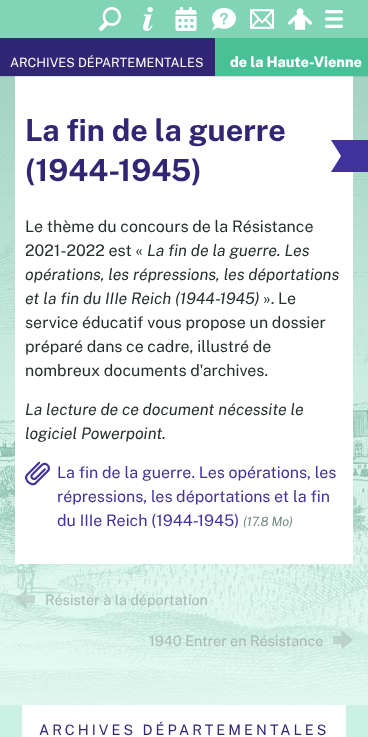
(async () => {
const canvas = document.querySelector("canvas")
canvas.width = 368
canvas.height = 737
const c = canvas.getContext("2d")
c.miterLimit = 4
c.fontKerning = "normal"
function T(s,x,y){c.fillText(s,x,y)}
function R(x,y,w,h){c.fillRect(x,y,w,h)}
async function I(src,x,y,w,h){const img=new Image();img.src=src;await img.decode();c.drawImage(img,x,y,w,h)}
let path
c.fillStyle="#fff"
R(0,0,368,737)
await I("1.png",0,76,368,629)
c.fillStyle="#82d4b7"
R(0,0,368,38)
await I("2.png",324,10,20,18)
await I("3.png",99,7,22,24)
await I("4.png",143,7,10,24)
await I("5.png",175,7,22,24)
await I("6.png",212,8,24,22)
await I("7.png",250,9,24,20)
await I("8.png",288,8,24,22)
c.fillStyle="#312674"
R(0,38,215,38)
c.font="100 12.75px 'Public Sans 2'"
c.fillStyle="#fff"
T("ARCHIVES DÉPARTEMENTALES",10,67)
c.fillStyle="#49c196"
R(215,38,153,38)
c.font="100 14.4px 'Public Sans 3'"
c.fillStyle="#fff"
T("de la Haute-Vienne",230,67)
R(15,76,338,488)
c.fillStyle="#476a6f33"
R(0,76,368,1)
c.font="100 30.5px Public Sans"
c.fillStyle="#312674"
T("La fin de la guerre",25,141)
T("(1944-1945)",25,181)
c.font="100 16px 'Public Sans 2'"
c.fillStyle="#252f2c"
T("Le thème du concours de la Résistance",25,232)
T("2021-2022 est «",25,256)
c.font="italic 100 16px Public Sans"
T("La fin de la guerre. Les",147,256)
T("opérations, les répressions, les déportations",25,280)
T("et la fin du IIIe Reich (1944-1945)",25,304)
c.font="100 16px 'Public Sans 2'"
T("». Le",263,304)
T("service éducatif vous propose un dossier",25,328)
T("préparé dans ce cadre, illustré de",25,352)
T("nombreux documents d'archives.",25,376)
c.font="italic 100 16px Public Sans"
T("La lecture de ce document nécessite le",25,415)
T("logiciel Powerpoint.",25,439)
await I("9.png",25,461,25,25)
c.font="100 16px 'Public Sans 2'"
c.fillStyle="#41329b"
T("La fin de la guerre. Les opérations, les",57,478)
T("répressions, les déportations et la fin",57,502)
T("du IIIe Reich (1944-1945)",57,526)
c.font="italic 100 12.75px Public Sans"
c.fillStyle="#6e8a81"
T("(17.8 Mo)",243,526)
await I("10.png",15,589,20,20)
c.font="100 14.4px 'Public Sans 2'"
c.fillStyle="#a6b8b2"
T("Résister à la déportation",45,605)
T("1940 Entrer en Résistance",149,646)
await I("11.png",333,630,20,20)
c.fillStyle="#41329b"
path = new Path2D("M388 172h-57l10-16l-10-16h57z")
c.fill(path)
c.fillStyle="#cbf1e4"
R(0,705,368,32)
c.fillStyle="#fff"
R(22,705,324,32)
c.letterSpacing="3px"
c.fillStyle="#312674"
T("ARCHIVES DÉPARTEMENTALES",39,735)
})()
